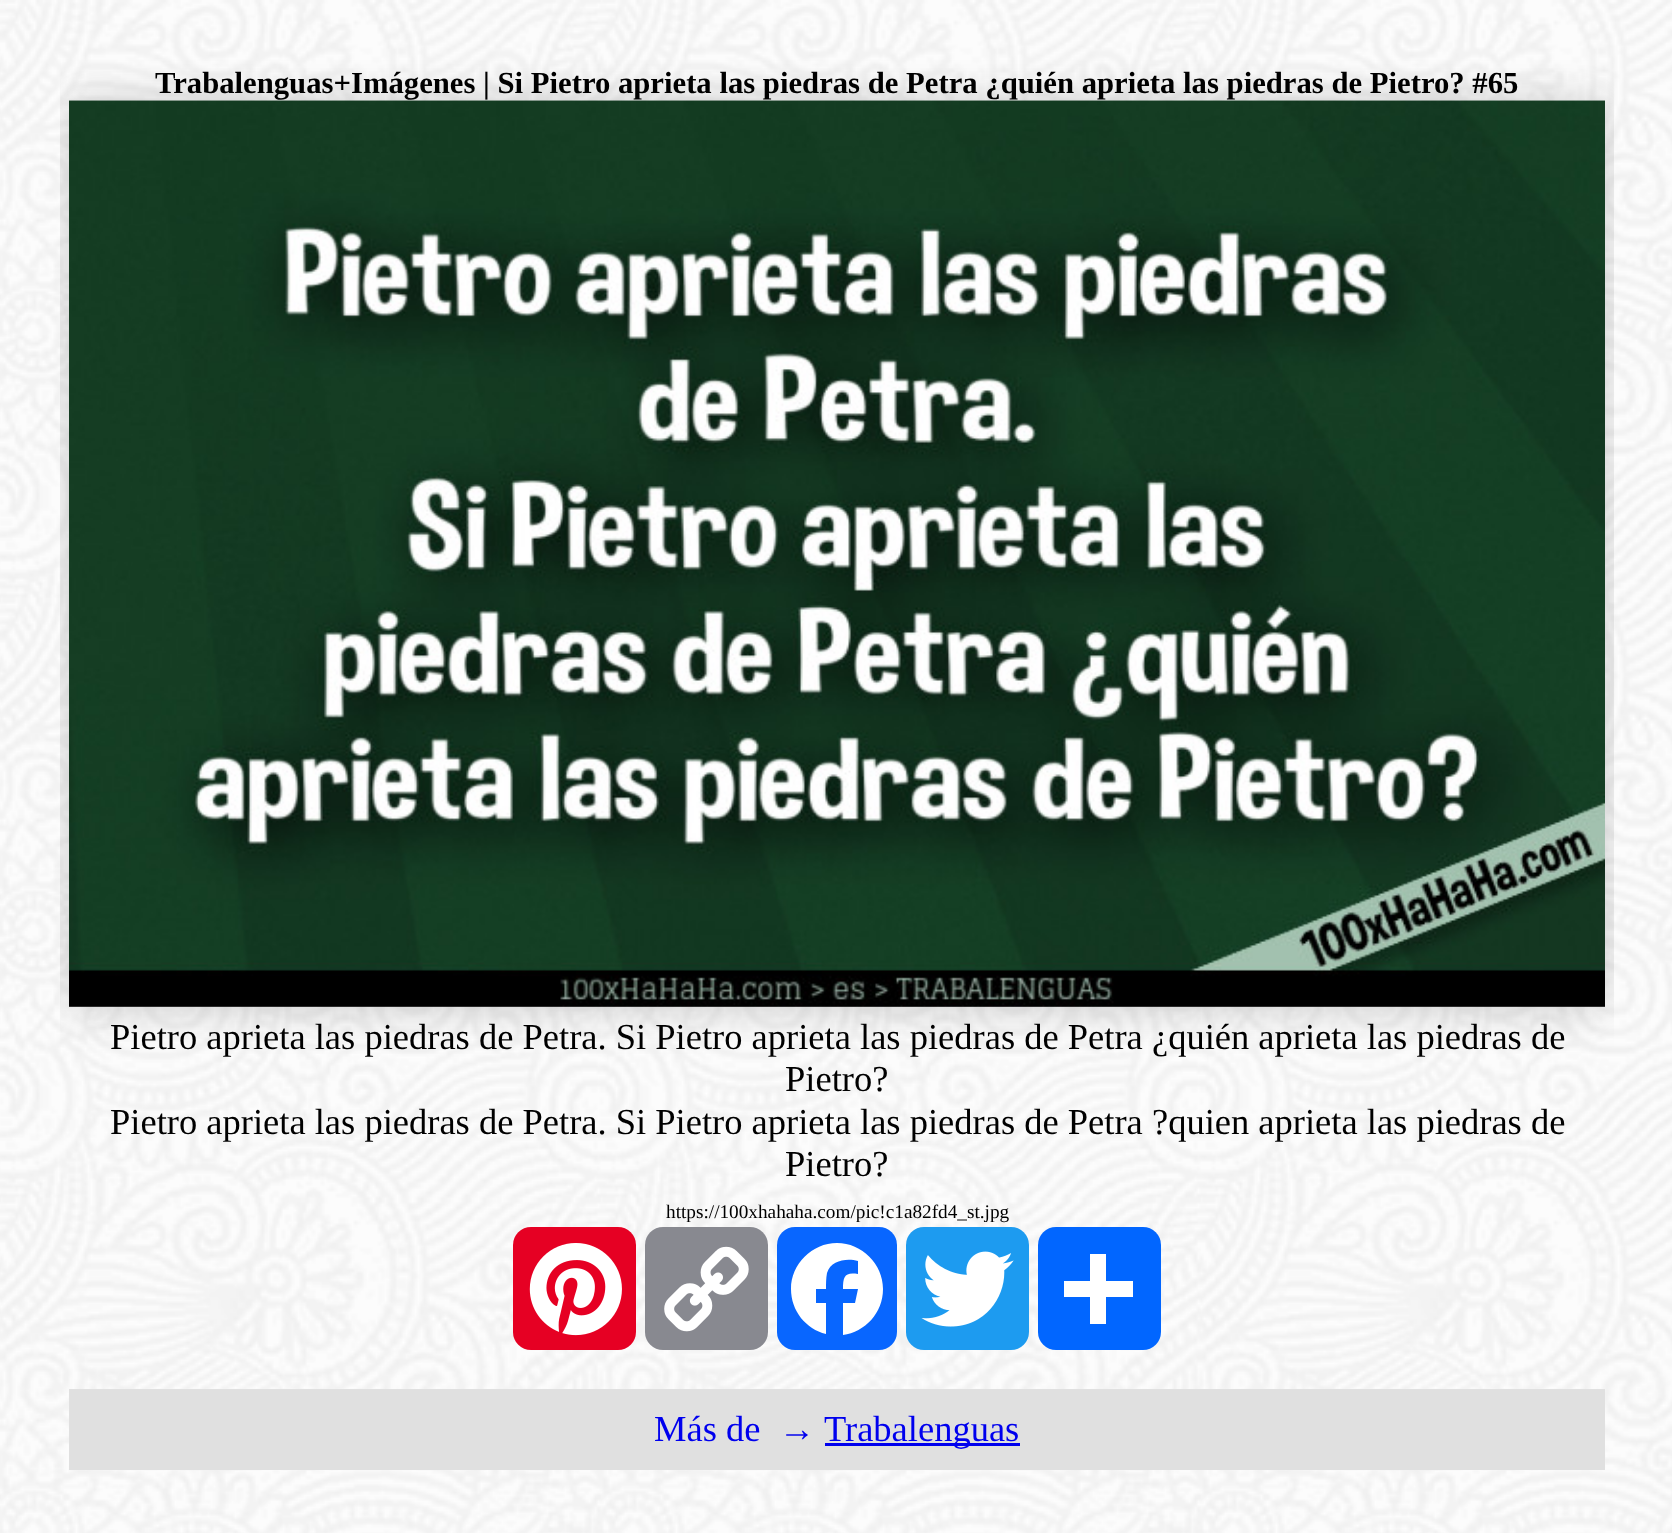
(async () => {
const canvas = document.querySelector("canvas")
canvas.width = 1672
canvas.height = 1533
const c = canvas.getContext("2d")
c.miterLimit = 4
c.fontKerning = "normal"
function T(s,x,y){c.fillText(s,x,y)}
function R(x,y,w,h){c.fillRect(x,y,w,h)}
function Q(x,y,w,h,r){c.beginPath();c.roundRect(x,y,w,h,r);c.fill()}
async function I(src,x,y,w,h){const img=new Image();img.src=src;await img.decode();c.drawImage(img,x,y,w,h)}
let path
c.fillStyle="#fff"
R(0,0,1672,1533)
await I("1.png",0,0,1672,1533)
c.font="bold 30.7px Liberation Serif"
c.fillStyle="#000"
T("Trabalenguas+Imágenes | Si Pietro aprieta las piedras de Petra ¿quién aprieta las piedras de Pietro? #65",155,93)
c.save()
c.beginPath()
c.rect(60,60,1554,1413)
c.clip()
c.fillStyle="#00000033"
c.filter="blur(22px)"
c.beginPath()
c.rect(69,102,1536,906)
c.fill()
c.filter="none"
c.restore()
await I("2.png",69,100,1536,907)
c.font="36.5px Liberation Serif"
T("Pietro aprieta las piedras de Petra. Si Pietro aprieta las piedras de Petra ¿quién aprieta las piedras de",110,1049)
T("Pietro?",785,1091)
T("Pietro aprieta las piedras de Petra. Si Pietro aprieta las piedras de Petra ?quien aprieta las piedras de",110,1134)
T("Pietro?",785,1176)
c.font="19.25px Liberation Serif"
T("https://100xhahaha.com/pic!c1a82fd4_st.jpg",666,1218)
c.fillStyle="#e60023"
Q(513,1227,123,123,18)
await I("3.png",529,1243,93,93)
c.fillStyle="#888990"
Q(645,1227,123,123,18)
await I("4.png",664,1246,85,86)
c.fillStyle="#0866ff"
Q(777,1227,120,123,18)
c.fillStyle="#fff"
path = new Path2D("M883 1289c0-25-21-46-46-46c-25 0-46 21-46 46c0 22 15 40 35 45v-31h-10v-14h10c0-5 0-11 1-16c4-13 20-15 31-12v13c-13-2-15 2-15 15h15l-3 14h-12v32c22-3 40-22 40-46")
c.fill(path)
c.fillStyle="#1d9bf0"
Q(906,1227,123,123,18)
await I("5.png",921,1251,93,76)
c.fillStyle="#0166ff"
Q(1038,1227,123,123,18)
c.fillStyle="#fff"
R(1090,1254,16,70)
R(1064,1281,69,16)
c.fillStyle="#e0e0e0"
R(69,1389,1536,81)
c.font="36.5px Liberation Serif"
c.fillStyle="#00e"
T("Más de  →",654,1441)
R(825,1443,195,3)
T("Trabalenguas",824,1441)
})()
